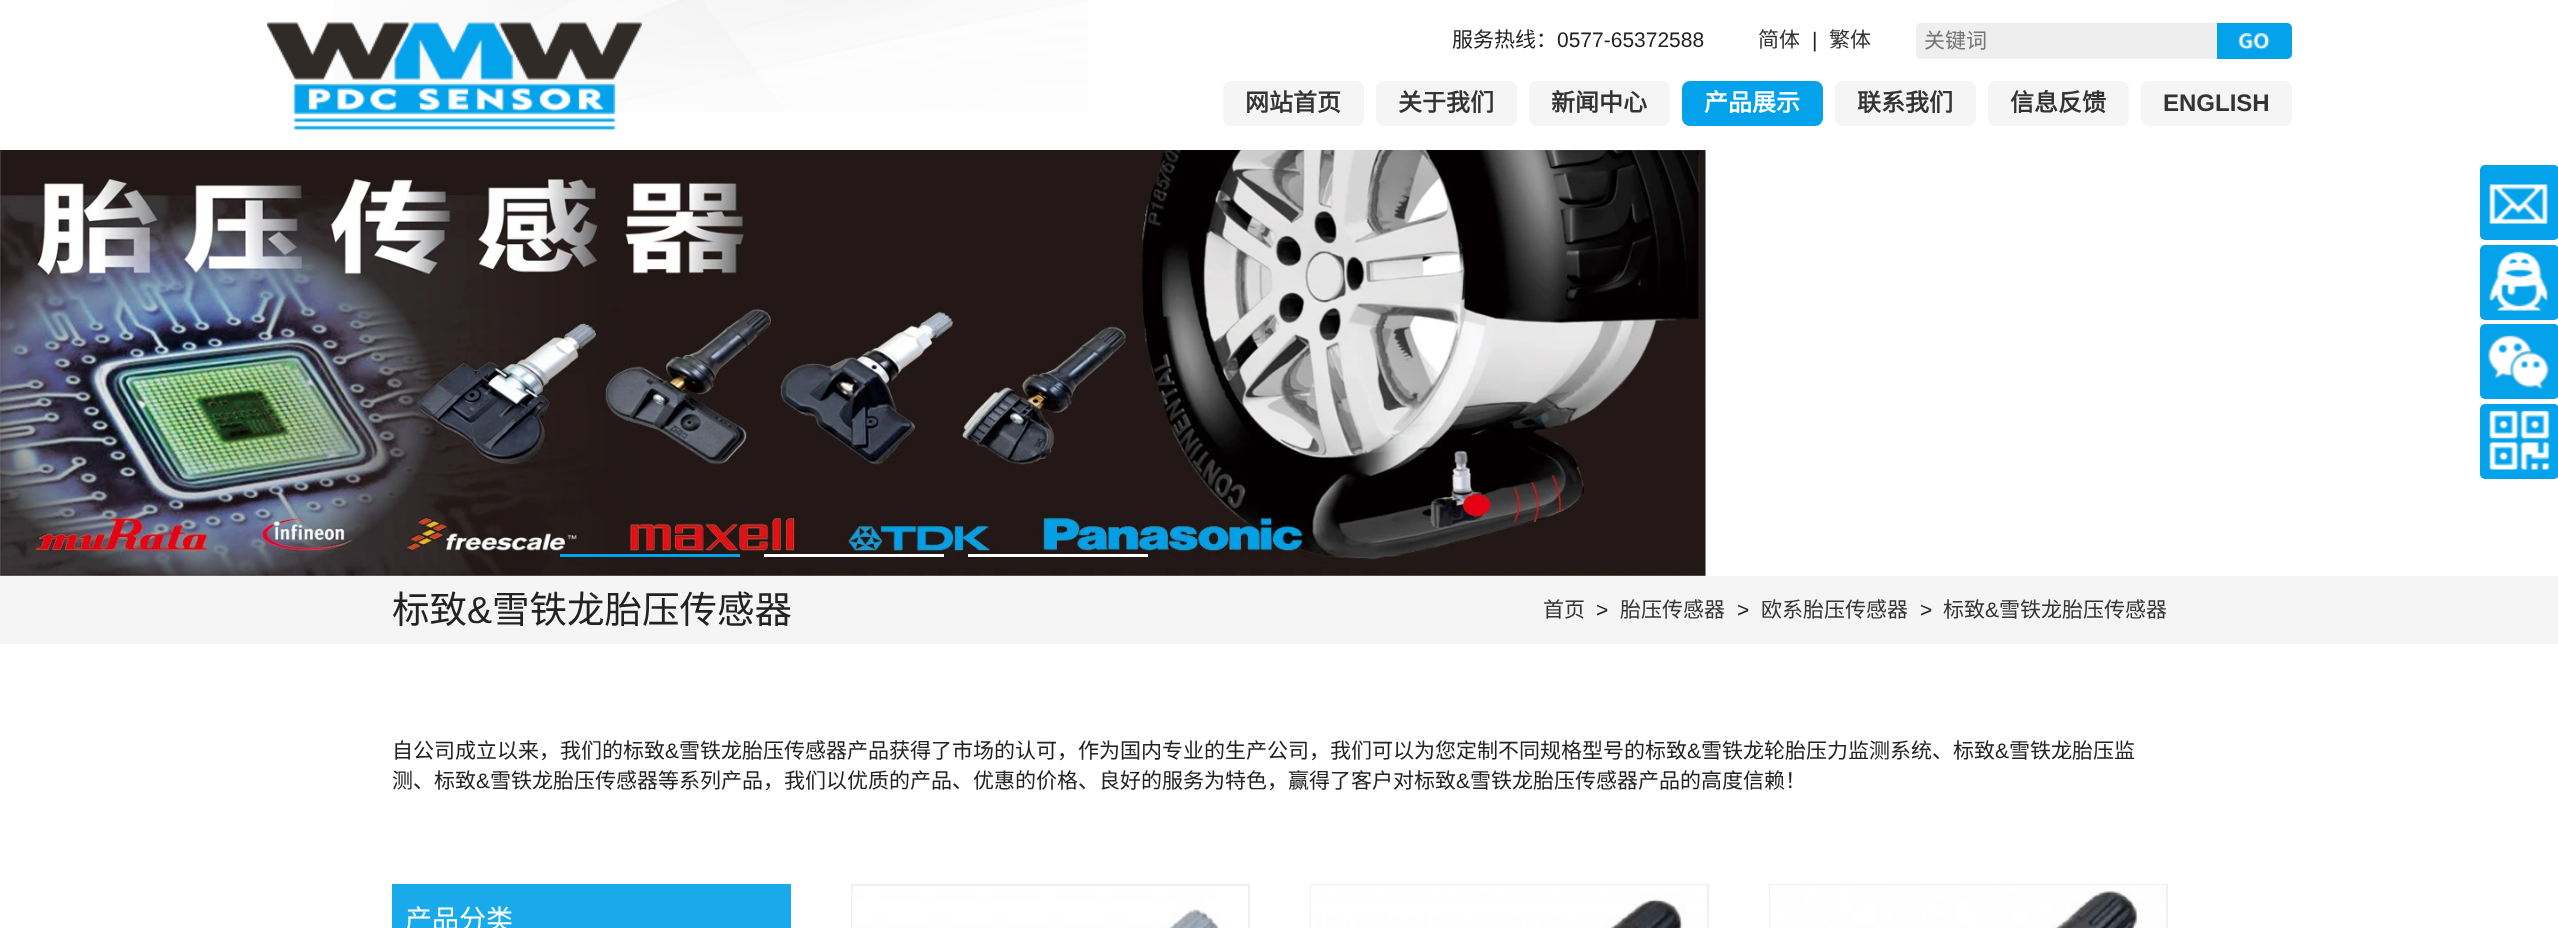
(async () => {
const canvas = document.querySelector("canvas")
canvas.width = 2558
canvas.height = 928
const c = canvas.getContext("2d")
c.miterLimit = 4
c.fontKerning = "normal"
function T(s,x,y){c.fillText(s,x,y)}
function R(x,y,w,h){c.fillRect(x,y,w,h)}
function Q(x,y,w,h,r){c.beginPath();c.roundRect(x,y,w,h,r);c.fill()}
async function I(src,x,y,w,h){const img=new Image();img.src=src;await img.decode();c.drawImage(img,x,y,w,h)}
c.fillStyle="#fff"
R(0,0,2558,928)
await I("1.png",334,0,754,112)
await I("2.png",267,22,375,109)
c.font="21px Noto Sans CJK SC"
c.fillStyle="#222"
T("服务热线：",1452,47)
c.font="21px Liberation Sans"
T("0577-65372588",1557,47)
c.font="21px Noto Sans CJK SC"
c.fillStyle="#333"
T("简体",1758,47)
c.font="21px Liberation Sans"
c.fillStyle="#222"
T("|",1812,47)
c.font="21px Noto Sans CJK SC"
c.fillStyle="#333"
T("繁体",1829,47)
c.fillStyle="#eee"
c.beginPath()
c.roundRect(1916,23,301,36,[5,0,0,5])
c.fill()
c.fillStyle="#757575"
T("关键词",1924,48)
c.fillStyle="#03a2ea"
c.beginPath()
c.roundRect(2217,23,75,36,[0,5,5,0])
c.fill()
await I("3.png",2238,33,32,17)
c.fillStyle="#f5f5f5"
Q(1223,81,141,45,8)
c.font="bold 24px Noto Sans CJK SC"
c.fillStyle="#333"
T("网站首页",1245,111)
c.fillStyle="#f5f5f5"
Q(1376,81,141,45,8)
c.fillStyle="#333"
T("关于我们",1398,111)
c.fillStyle="#f5f5f5"
Q(1529,81,141,45,8)
c.fillStyle="#333"
T("新闻中心",1551,111)
c.fillStyle="#03a2ea"
Q(1682,81,141,45,8)
c.fillStyle="#fff"
T("产品展示",1704,111)
c.fillStyle="#f5f5f5"
Q(1835,81,141,45,8)
c.fillStyle="#333"
T("联系我们",1857,111)
c.fillStyle="#f5f5f5"
Q(1988,81,141,45,8)
c.fillStyle="#333"
T("信息反馈",2010,111)
c.fillStyle="#f5f5f5"
Q(2141,81,151,45,8)
c.font="bold 24px Liberation Sans"
c.fillStyle="#333"
T("ENGLISH",2163,111)
await I("5.png",1705,150,1,426)
await I("6.png",1705,150,1,426)
await I("4.png",0,150,1706,426)
c.fillStyle="#03a2ea"
R(560,554,180,3)
c.fillStyle="#fff"
R(764,554,180,3)
R(968,554,180,3)
c.fillStyle="#03a2ea"
Q(2480,165,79,75,5)
await I("7.png",2489,184,59,40)
Q(2480,245,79,75,5)
await I("8.png",2489,251,59,60)
Q(2480,324,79,75,5)
await I("9.png",2487,335,63,54)
Q(2480,404,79,75,5)
await I("10.png",2489,410,61,60)
c.fillStyle="#f5f5f5"
R(0,576,2558,68)
c.font="37.5px Noto Sans CJK SC"
c.fillStyle="#222"
T("标致",392,623)
c.font="37.5px Liberation Sans"
T("&",467,623)
c.font="37.5px Noto Sans CJK SC"
T("雪铁龙胎压传感器",492,623)
c.font="21px Noto Sans CJK SC"
c.fillStyle="#333"
T("首页",1543,617)
c.font="21px Liberation Sans"
c.fillStyle="#222"
T(">",1596,617)
c.font="21px Noto Sans CJK SC"
c.fillStyle="#333"
T("胎压传感器",1620,617)
c.font="21px Liberation Sans"
c.fillStyle="#222"
T(">",1737,617)
c.font="21px Noto Sans CJK SC"
c.fillStyle="#333"
T("欧系胎压传感器",1761,617)
c.font="21px Liberation Sans"
c.fillStyle="#222"
T(">",1920,617)
c.font="21px Noto Sans CJK SC"
c.fillStyle="#333"
T("标致",1943,617)
c.font="21px Liberation Sans"
T("&",1985,617)
c.font="21px Noto Sans CJK SC"
T("雪铁龙胎压传感器",1999,617)
c.fillStyle="#222"
T("自公司成立以来，我们的标致",392,758)
c.font="21px Liberation Sans"
T("&",665,758)
c.font="21px Noto Sans CJK SC"
T("雪铁龙胎压传感器产品获得了市场的认可，作为国内专业的生产公司，我们可以为您定制不同规格型号的标致",679,758)
c.font="21px Liberation Sans"
T("&",1687,758)
c.font="21px Noto Sans CJK SC"
T("雪铁龙轮胎压力监测系统、标致",1701,758)
c.font="21px Liberation Sans"
T("&",1995,758)
c.font="21px Noto Sans CJK SC"
T("雪铁龙胎压监",2009,758)
T("测、标致",392,788)
c.font="21px Liberation Sans"
T("&",476,788)
c.font="21px Noto Sans CJK SC"
T("雪铁龙胎压传感器等系列产品，我们以优质的产品、优惠的价格、良好的服务为特色，赢得了客户对标致",490,788)
c.font="21px Liberation Sans"
T("&",1456,788)
c.font="21px Noto Sans CJK SC"
T("雪铁龙胎压传感器产品的高度信赖！",1470,788)
c.fillStyle="#1aaaec"
R(392,884,399,44)
c.font="27px Noto Sans CJK SC"
c.fillStyle="#fff"
T("产品分类",405,929)
c.strokeStyle="#f0f0f0"
c.lineWidth=2
c.strokeRect(852,885,397,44)
await I("11.png",852,891,375,37)
c.strokeRect(1311,885,397,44)
await I("12.png",1311,885,396,43)
c.strokeRect(1770,885,397,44)
await I("13.png",1770,885,396,43)
})()
